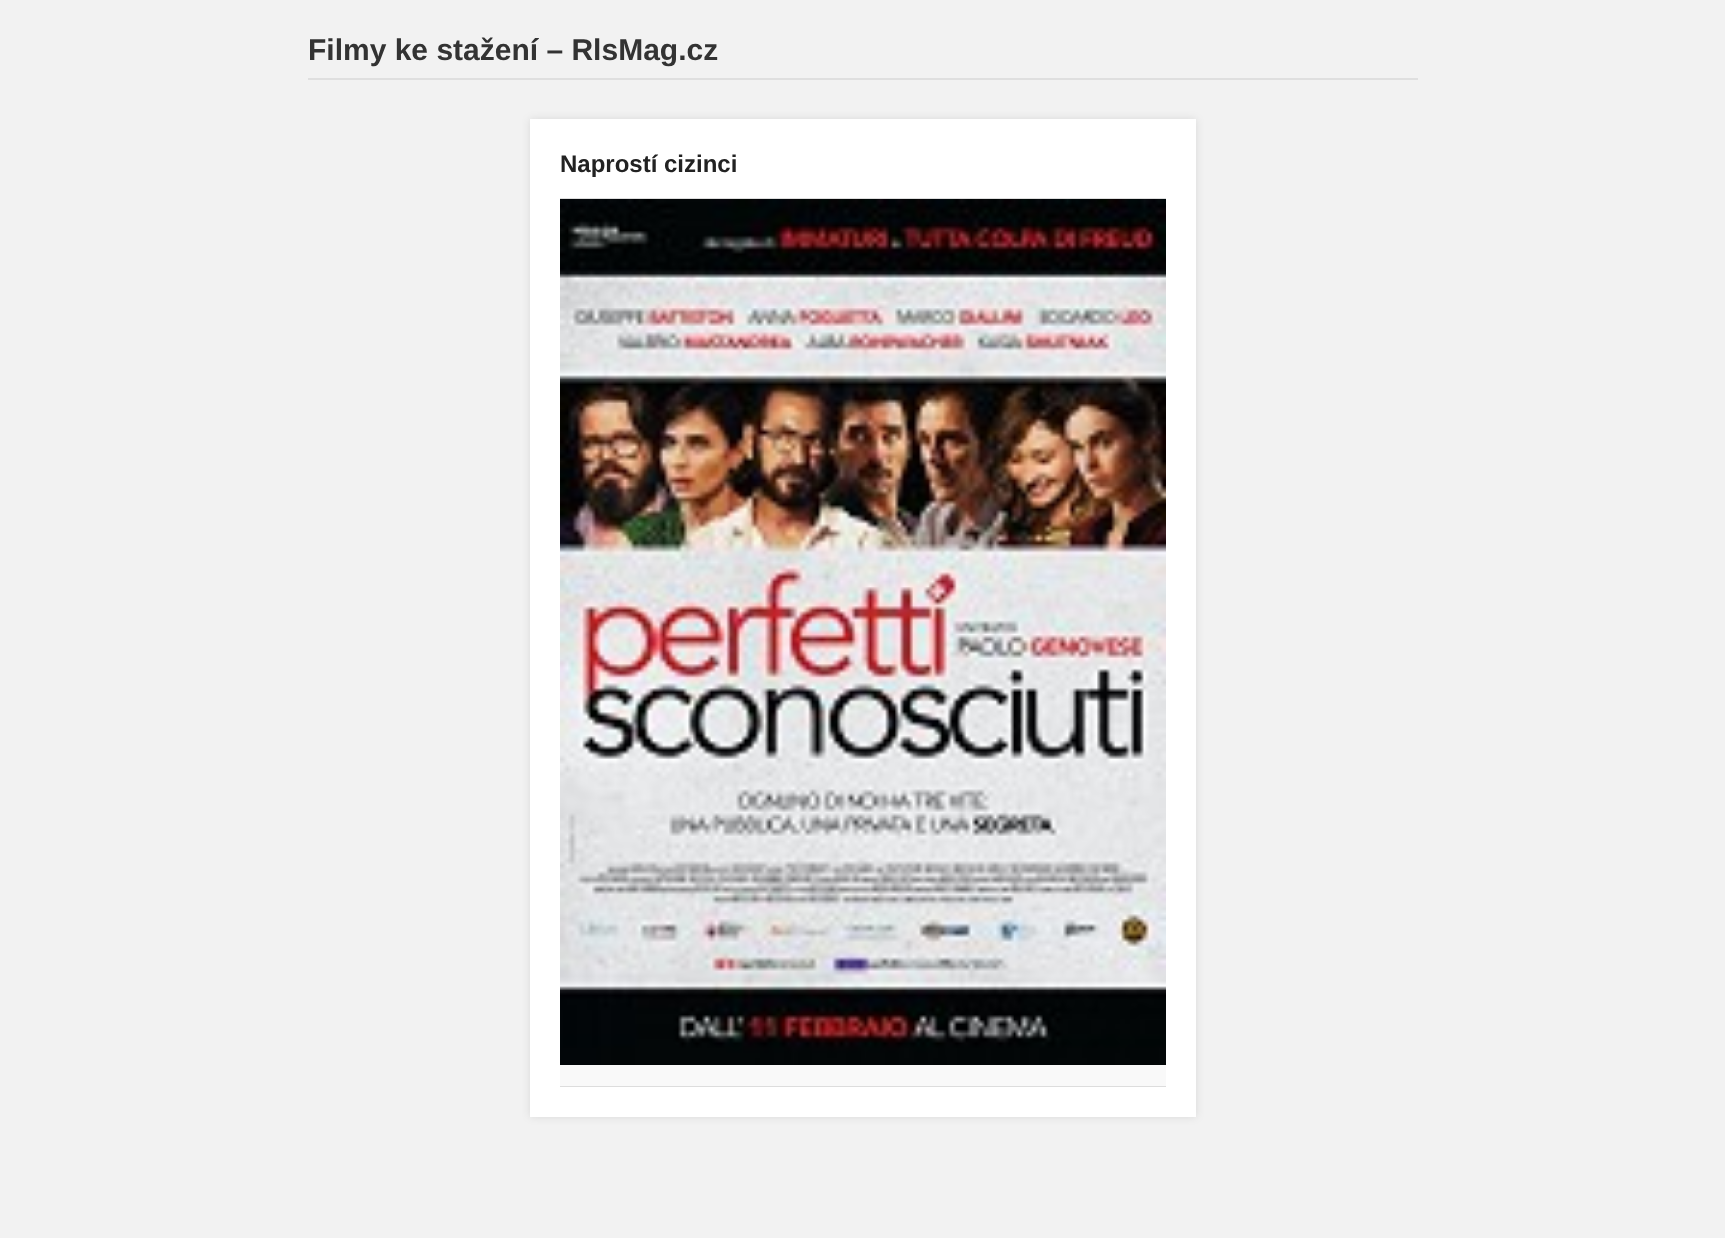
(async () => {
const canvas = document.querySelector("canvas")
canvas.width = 1725
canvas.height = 1238
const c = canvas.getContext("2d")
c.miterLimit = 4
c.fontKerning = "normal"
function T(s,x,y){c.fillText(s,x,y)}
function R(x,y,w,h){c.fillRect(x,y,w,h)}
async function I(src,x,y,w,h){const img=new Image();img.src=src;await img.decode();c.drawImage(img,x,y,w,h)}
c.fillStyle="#f2f2f2"
R(0,0,1725,1238)
c.fillStyle="#dfdfdf"
R(308,78,1110,2)
c.font="bold 30px Liberation Sans"
c.fillStyle="#333"
T("Filmy ke stažení – RlsMag.cz",308,60)
c.fillStyle="#0000001a"
c.filter="blur(4px)"
c.beginPath()
c.rect(530,119,666,998)
c.fill()
c.filter="none"
c.fillStyle="#fff"
R(530,119,666,998)
c.font="bold 24px Liberation Sans"
c.fillStyle="#222"
T("Naprostí cizinci",560,172)
c.fillStyle="#f9f9f9"
R(560,1065,606,21)
c.fillStyle="#ddd"
R(560,198,606,1)
R(560,1086,606,1)
await I("1.png",560,199,606,866)
})()
